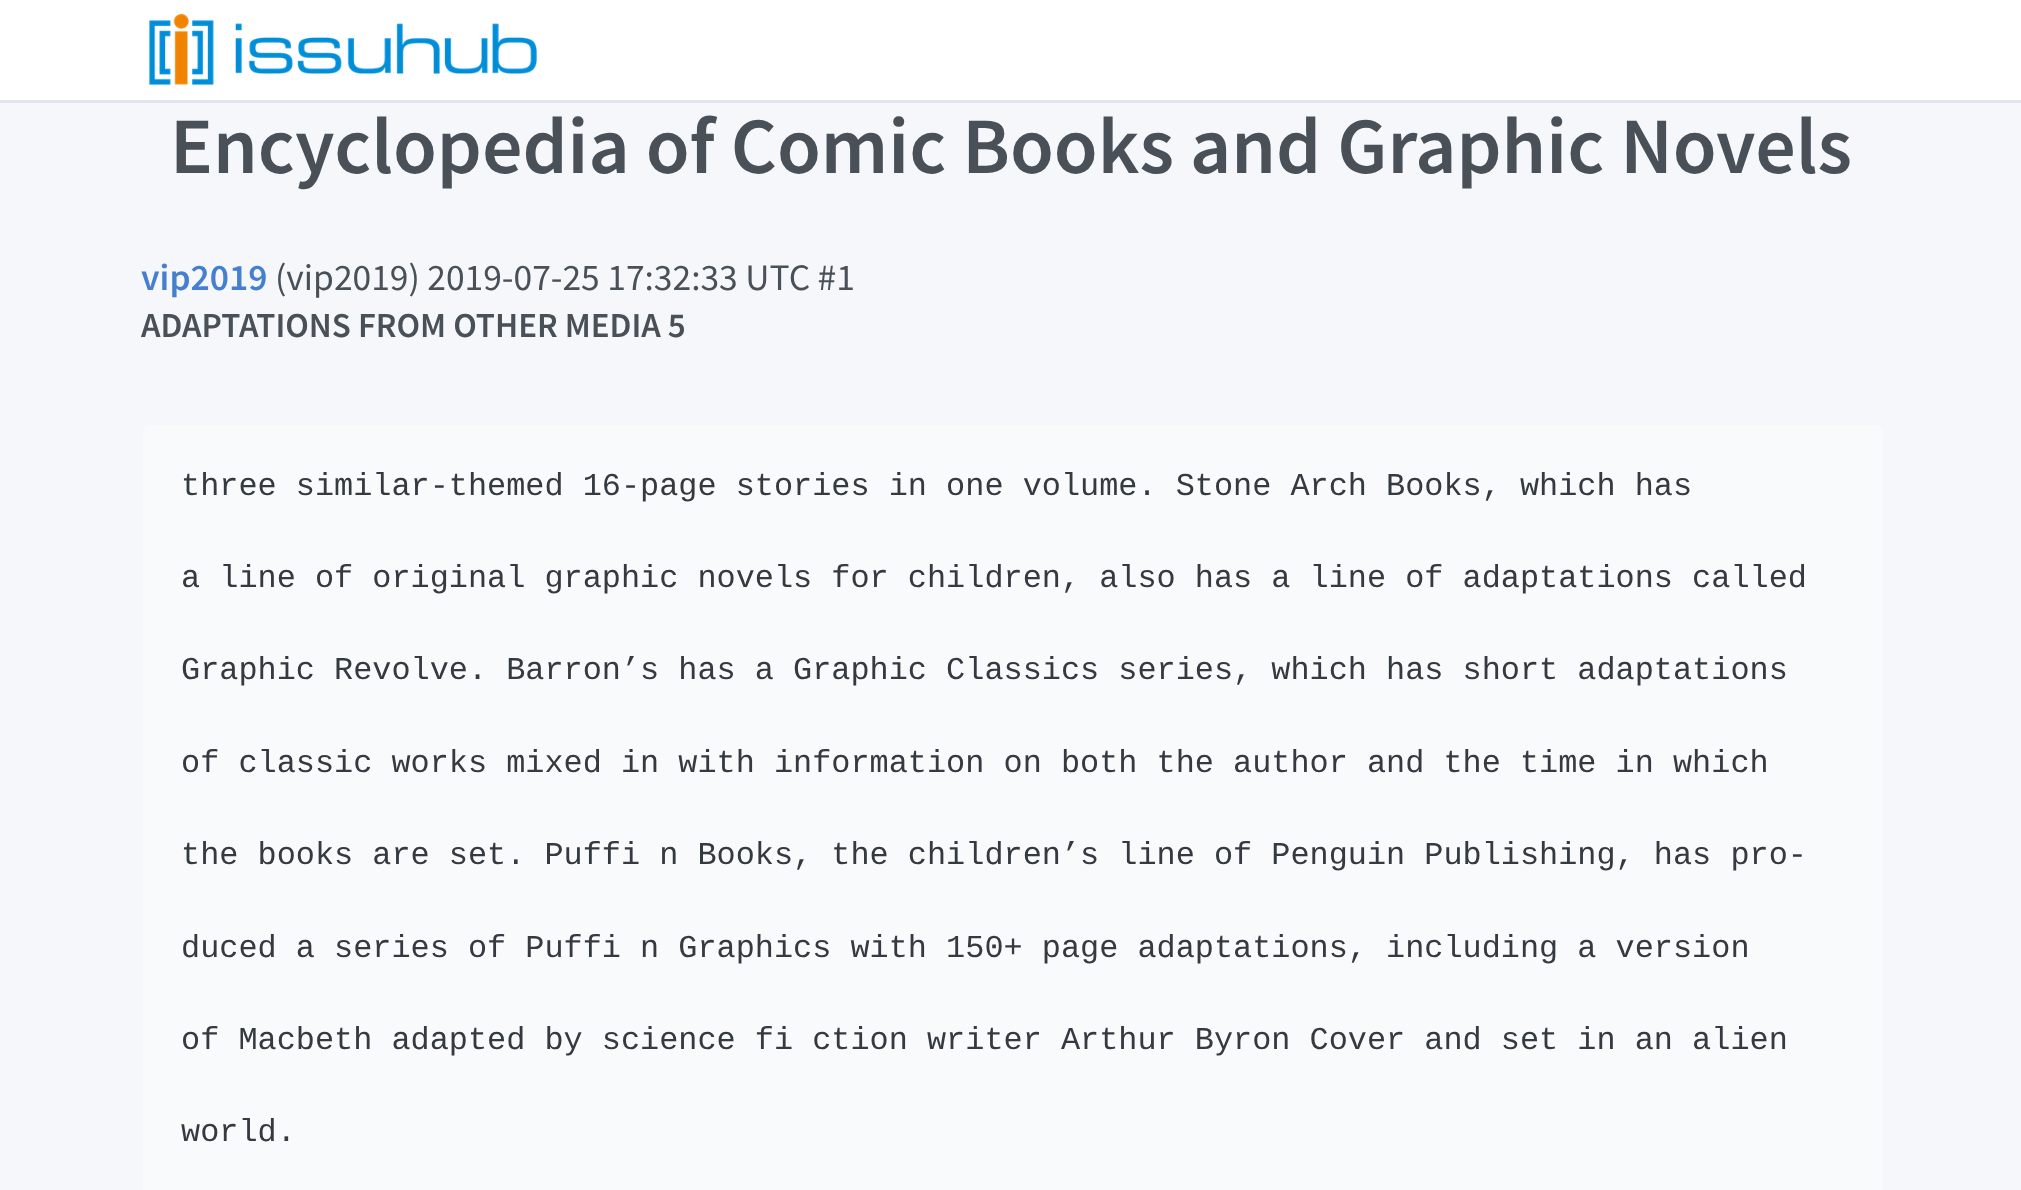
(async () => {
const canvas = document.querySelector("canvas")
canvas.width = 2021
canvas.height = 1190
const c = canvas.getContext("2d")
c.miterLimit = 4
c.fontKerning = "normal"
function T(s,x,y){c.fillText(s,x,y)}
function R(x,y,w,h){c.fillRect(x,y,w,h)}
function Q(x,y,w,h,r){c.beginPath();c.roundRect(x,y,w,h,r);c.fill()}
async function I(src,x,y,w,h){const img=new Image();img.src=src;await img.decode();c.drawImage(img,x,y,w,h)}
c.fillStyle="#f5f7fb"
R(0,0,2021,1190)
c.fillStyle="#fff"
R(0,0,2021,100)
c.fillStyle="#e0e5ec"
R(0,100,2021,3)
await I("1.png",149,13,388,73)
c.font="600 80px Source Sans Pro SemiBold"
c.fillStyle="#495057"
T("Encyclopedia of Comic Books and Graphic Novels",170,173)
c.font="600 37.5px Source Sans Pro SemiBold"
c.fillStyle="#467fcf"
T("vip2019",141,290)
c.font="37.5px Source Sans Pro"
c.fillStyle="#495057"
T("(vip2019) 2019-07-25 17:32:33 UTC #1",275,290)
c.font="600 35px Source Sans Pro SemiBold"
T("ADAPTATIONS FROM OTHER MEDIA 5",141,337)
c.fillStyle="#f8fafc"
Q(143,425,1740,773,8)
c.font="31.88px Liberation Mono"
c.fillStyle="#343a40"
T("three similar-themed 16-page stories in one volume. Stone Arch Books, which has",181,495)
T("a line of original graphic novels for children, also has a line of adaptations called",181,587)
T("Graphic Revolve. Barron’s has a Graphic Classics series, which has short adaptations",181,679)
T("of classic works mixed in with information on both the author and the time in which",181,772)
T("the books are set. Puffi n Books, the children’s line of Penguin Publishing, has pro-",181,864)
T("duced a series of Puffi n Graphics with 150+ page adaptations, including a version",181,957)
T("of Macbeth adapted by science fi ction writer Arthur Byron Cover and set in an alien",181,1049)
T("world.",181,1141)
})()
